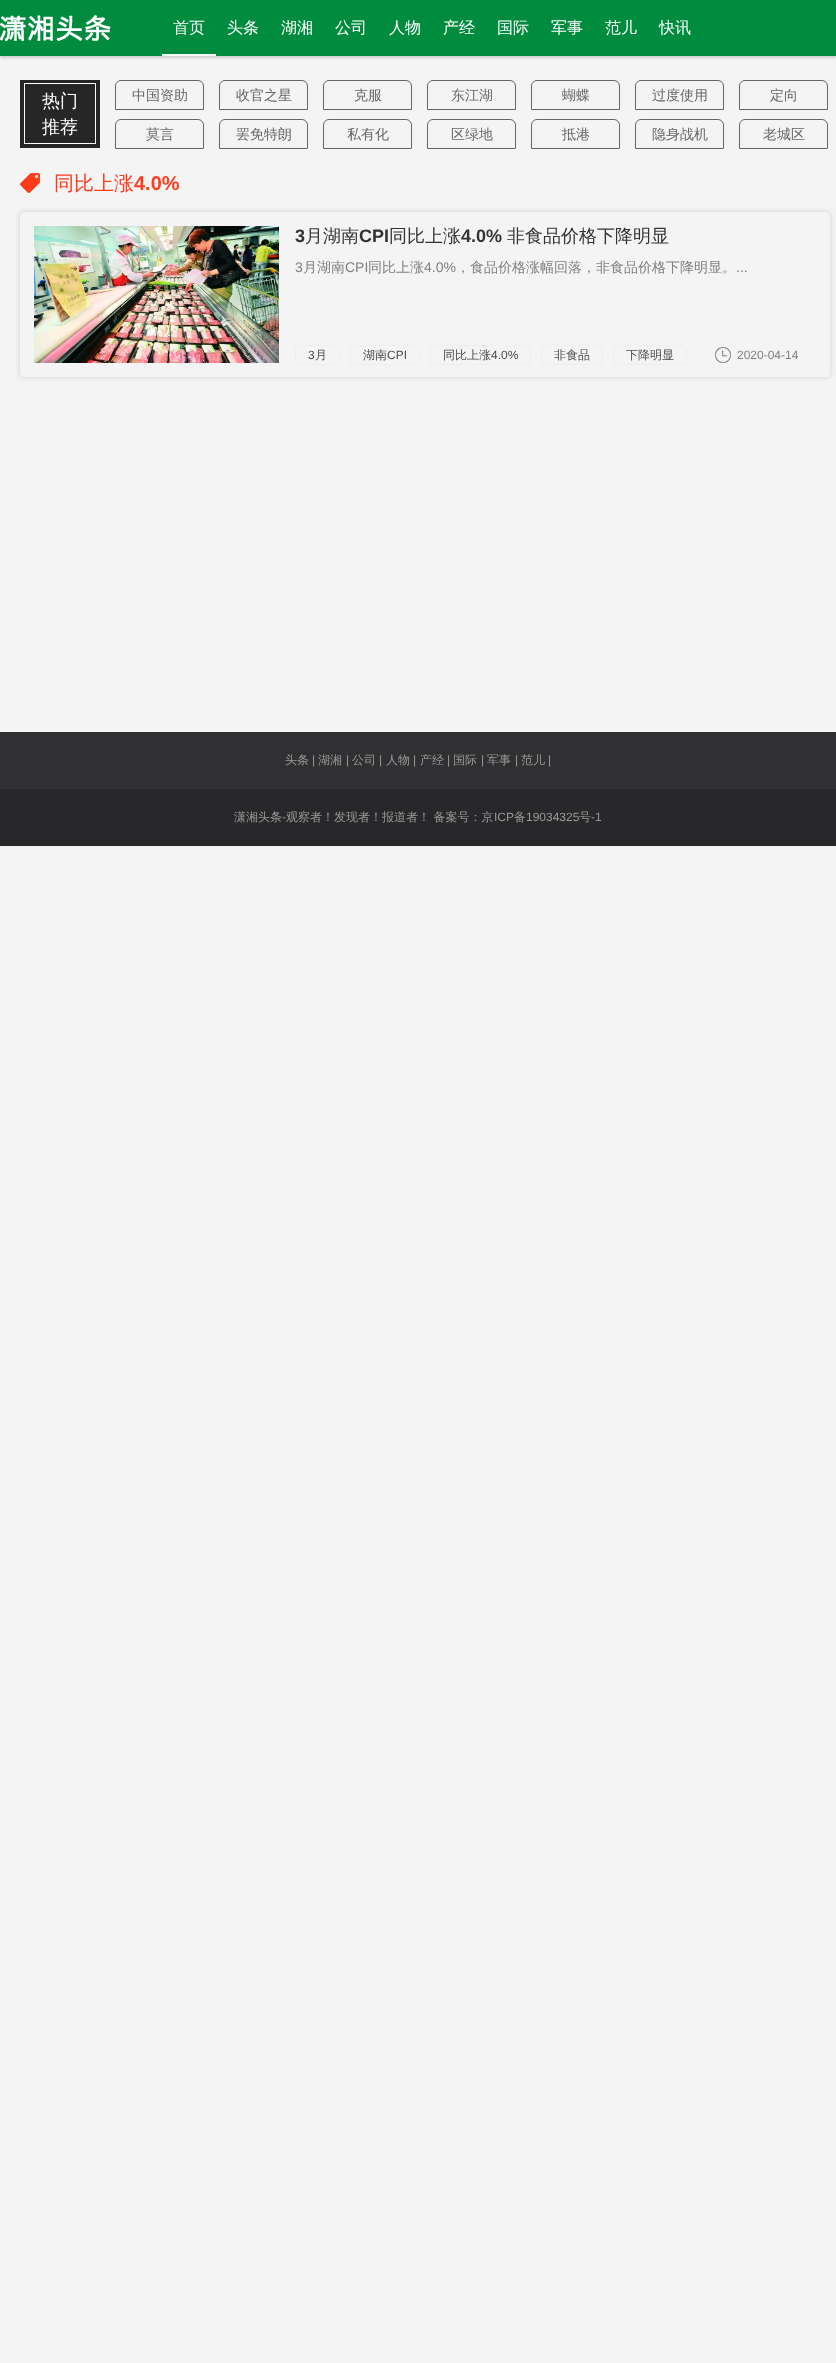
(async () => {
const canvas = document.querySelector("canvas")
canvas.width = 836
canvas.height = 2363
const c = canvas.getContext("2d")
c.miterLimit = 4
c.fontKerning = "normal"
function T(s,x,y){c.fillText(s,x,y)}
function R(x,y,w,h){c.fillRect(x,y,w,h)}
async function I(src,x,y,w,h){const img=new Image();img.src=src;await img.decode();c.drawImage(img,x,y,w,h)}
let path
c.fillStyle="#f4f4f4"
R(0,0,836,2363)
c.fillStyle="#ccc"
c.filter="blur(1.5px)"
c.beginPath()
c.rect(0,2,836,56)
c.fill()
c.filter="none"
c.fillStyle="#008c3e"
R(0,0,836,56)
await I("1.png",0,15,111,27)
c.fillStyle="#f7f7f7"
R(162,54,54,2)
c.font="500 16px WenQuanYi Zen Hei"
T("首页",173,33)
c.fillStyle="#fff"
T("头条",227,33)
T("湖湘",281,33)
T("公司",335,33)
T("人物",389,33)
T("产经",443,33)
T("国际",497,33)
T("军事",551,33)
T("范儿",605,33)
T("快讯",659,33)
c.fillStyle="#262626"
R(20,80,80,68)
c.strokeStyle="#fff"
c.strokeRect(24.5,83.5,71,60)
c.font="500 18px WenQuanYi Zen Hei"
c.fillStyle="#fff"
T("热门",42,107)
T("推荐",42,133)
c.beginPath()
c.roundRect(115.5,80.5,88,29,[5.5,5.5,0,0])
c.strokeStyle="#666"
c.stroke()
c.font="500 14px WenQuanYi Zen Hei"
c.fillStyle="#666"
T("中国资助",132,100)
c.beginPath()
c.roundRect(219.5,80.5,88,29,[5.5,5.5,0,0])
c.stroke()
T("收官之星",236,100)
c.beginPath()
c.roundRect(323.5,80.5,88,29,[5.5,5.5,0,0])
c.stroke()
T("克服",354,100)
c.beginPath()
c.roundRect(427.5,80.5,88,29,[5.5,5.5,0,0])
c.stroke()
T("东江湖",451,100)
c.beginPath()
c.roundRect(531.5,80.5,88,29,[5.5,5.5,0,0])
c.stroke()
T("蝴蝶",562,100)
c.beginPath()
c.roundRect(635.5,80.5,88,29,[5.5,5.5,0,0])
c.stroke()
T("过度使用",652,100)
c.beginPath()
c.roundRect(739.5,80.5,88,29,[5.5,5.5,0,0])
c.stroke()
T("定向",770,100)
c.beginPath()
c.roundRect(115.5,119.5,88,29,[5.5,5.5,0,0])
c.stroke()
T("莫言",146,139)
c.beginPath()
c.roundRect(219.5,119.5,88,29,[5.5,5.5,0,0])
c.stroke()
T("罢免特朗",236,139)
c.beginPath()
c.roundRect(323.5,119.5,88,29,[5.5,5.5,0,0])
c.stroke()
T("私有化",347,139)
c.beginPath()
c.roundRect(427.5,119.5,88,29,[5.5,5.5,0,0])
c.stroke()
T("区绿地",451,139)
c.beginPath()
c.roundRect(531.5,119.5,88,29,[5.5,5.5,0,0])
c.stroke()
T("抵港",562,139)
c.beginPath()
c.roundRect(635.5,119.5,88,29,[5.5,5.5,0,0])
c.stroke()
T("隐身战机",652,139)
c.beginPath()
c.roundRect(739.5,119.5,88,29,[5.5,5.5,0,0])
c.stroke()
T("老城区",763,139)
await I("2.png",20,173,20,20)
c.font="500 20px WenQuanYi Zen Hei"
c.fillStyle="#fe3c1c"
T("同比上涨",54,190)
c.font="bold 20px Liberation Sans"
T("4.0%",134,190)
c.save()
path = new Path2D("M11 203h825v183h-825zm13 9h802c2 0 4 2 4 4v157c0 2-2 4-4 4h-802c-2 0-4-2-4-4v-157c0-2 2-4 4-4z")
c.clip(path,"evenodd")
c.fillStyle="#ccc"
c.filter="blur(2.5px)"
c.beginPath()
c.roundRect(20,212,810,165,4)
c.fill()
c.filter="none"
c.restore()
await I("3.png",34,226,245,137)
c.font="bold 18px Liberation Sans"
c.fillStyle="#333"
T("3",295,242)
c.font="500 18px WenQuanYi Zen Hei"
T("月湖南",305,242)
c.font="bold 18px Liberation Sans"
T("CPI",359,242)
c.font="500 18px WenQuanYi Zen Hei"
T("同比上涨",389,242)
c.font="bold 18px Liberation Sans"
T("4.0%",461,242)
c.font="500 18px WenQuanYi Zen Hei"
T("非食品价格下降明显",507,242)
c.font="14px Liberation Sans"
c.fillStyle="#808080"
T("3",295,272)
c.font="500 14px WenQuanYi Zen Hei"
T("月湖南",303,272)
c.font="14px Liberation Sans"
T("CPI",345,272)
c.font="500 14px WenQuanYi Zen Hei"
T("同比上涨",368,272)
c.font="14px Liberation Sans"
T("4.0%",424,272)
c.font="500 14px WenQuanYi Zen Hei"
T("，食品价格涨幅回落，非食品价格下降明显。",456,272)
c.font="14px Liberation Sans"
T("...",736,272)
c.beginPath()
c.roundRect(295.5,345.5,44,19,3.5)
c.strokeStyle="#eee"
c.stroke()
c.font="12px Liberation Sans"
c.fillStyle="#4d4d4d"
T("3",308,359)
c.font="500 12px WenQuanYi Zen Hei"
T("月",315,359)
c.beginPath()
c.roundRect(350.5,345.5,69,19,3.5)
c.stroke()
T("湖南",363,359)
c.font="12px Liberation Sans"
T("CPI",387,359)
c.beginPath()
c.roundRect(430.5,345.5,100,19,3.5)
c.stroke()
c.font="500 12px WenQuanYi Zen Hei"
T("同比上涨",443,359)
c.font="12px Liberation Sans"
T("4.0%",491,359)
c.beginPath()
c.roundRect(541.5,345.5,61,19,3.5)
c.stroke()
c.font="500 12px WenQuanYi Zen Hei"
T("非食品",554,359)
c.beginPath()
c.roundRect(613.5,345.5,73,19,3.5)
c.stroke()
T("下降明显",626,359)
await I("4.png",715,347,16,16)
c.font="12px Liberation Sans"
c.fillStyle="#808080"
T("2020-04-14",737,359)
c.fillStyle="#28282a"
R(0,789,836,57)
c.fillStyle="#303032"
R(0,732,836,57)
c.font="500 12px WenQuanYi Zen Hei"
c.fillStyle="#999"
T("头条",285,764)
c.font="12px Liberation Sans"
T("|",312,764)
c.font="500 12px WenQuanYi Zen Hei"
T("湖湘",318,764)
c.font="12px Liberation Sans"
T("|",346,764)
c.font="500 12px WenQuanYi Zen Hei"
T("公司",352,764)
c.font="12px Liberation Sans"
T("|",379,764)
c.font="500 12px WenQuanYi Zen Hei"
T("人物",386,764)
c.font="12px Liberation Sans"
T("|",413,764)
c.font="500 12px WenQuanYi Zen Hei"
T("产经",420,764)
c.font="12px Liberation Sans"
T("|",447,764)
c.font="500 12px WenQuanYi Zen Hei"
T("国际",453,764)
c.font="12px Liberation Sans"
T("|",481,764)
c.font="500 12px WenQuanYi Zen Hei"
T("军事",487,764)
c.font="12px Liberation Sans"
T("|",515,764)
c.font="500 12px WenQuanYi Zen Hei"
T("范儿",521,764)
c.font="12px Liberation Sans"
T("|",548,764)
c.font="500 12px WenQuanYi Zen Hei"
T("潇湘头条",234,821)
c.font="12px Liberation Sans"
T("-",282,821)
c.font="500 12px WenQuanYi Zen Hei"
T("观察者！发现者！报道者！ 备案号：京",286,821)
c.font="12px Liberation Sans"
T("ICP",494,821)
c.font="500 12px WenQuanYi Zen Hei"
T("备",514,821)
c.font="12px Liberation Sans"
T("19034325",526,821)
c.font="500 12px WenQuanYi Zen Hei"
T("号",579,821)
c.font="12px Liberation Sans"
T("-1",591,821)
})()
